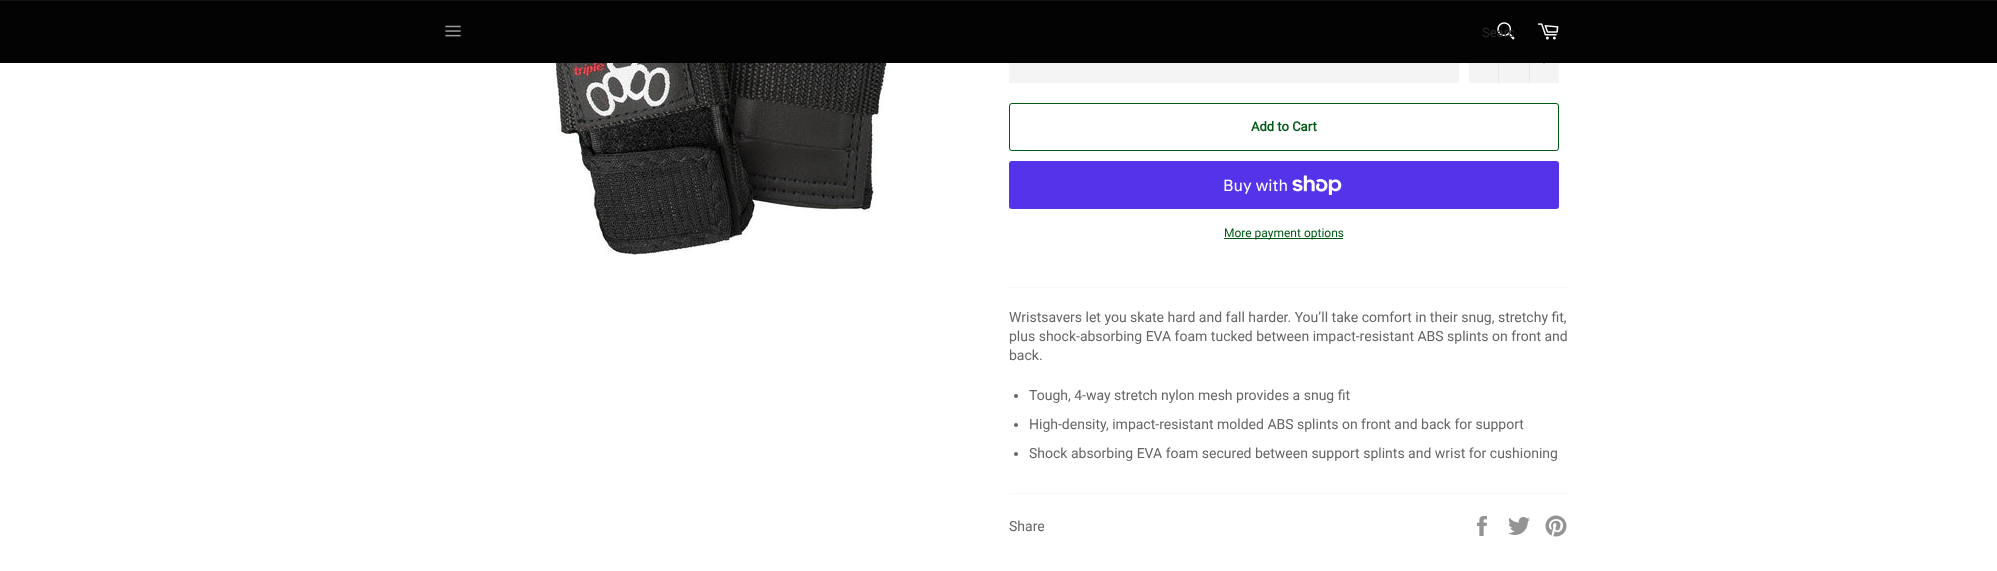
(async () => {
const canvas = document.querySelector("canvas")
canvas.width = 1997
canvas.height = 571
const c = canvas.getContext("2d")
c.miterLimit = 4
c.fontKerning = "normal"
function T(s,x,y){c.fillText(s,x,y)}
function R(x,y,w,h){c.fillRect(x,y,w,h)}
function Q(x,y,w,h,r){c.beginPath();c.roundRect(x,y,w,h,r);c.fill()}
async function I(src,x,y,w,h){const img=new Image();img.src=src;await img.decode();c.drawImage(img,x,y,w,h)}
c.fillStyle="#fff"
R(0,0,1997,571)
c.fillStyle="#030303"
R(0,1,1997,62)
c.fillStyle="#101010"
R(0,0,1997,1)
await I("1.png",445,25,16,12)
await I("2.png",1497,22,18,18)
c.font="13px Roboto"
c.fillStyle="#292929"
T("Searc",1482,37)
await I("3.png",1537,23,22,17)
await I("4.png",549,63,353,192)
c.fillStyle="#f4f4f4"
R(1009,63,450,20)
R(1469,63,90,20)
c.fillStyle="#e7e7e7"
R(1498,63,1,20)
R(1529,63,1,20)
await I("5.png",1543,63,2,1)
c.beginPath()
c.roundRect(1009.5,103.5,549,47,2.5)
c.strokeStyle="#005915"
c.stroke()
c.font="bold 13px Roboto"
c.fillStyle="#005915"
T("Add to Cart",1251,131)
c.fillStyle="#5433eb"
Q(1009,161,550,48,3)
c.font="16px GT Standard"
c.fillStyle="#fff"
T("Buy with",1223,191)
await I("6.png",1292,175,50,20)
c.fillStyle="#005915"
R(1224,238,119,1)
c.font="12px Roboto"
T("More payment options",1224,237)
c.fillStyle="#f7f7f7"
R(1009,287,560,1)
c.font="14px Roboto"
c.fillStyle="#666"
T("Wristsavers let you skate hard and fall harder. You’ll take comfort in their snug, stretchy fit,",1009,322)
T("plus shock-absorbing EVA foam tucked between impact-resistant ABS splints on front and",1009,341)
T("back.",1009,360)
c.beginPath()
c.arc(1016,396,2,0,7)
c.fill()
T("Tough, 4-way stretch nylon mesh provides a snug fit",1029,400)
c.beginPath()
c.arc(1016,425,2,0,7)
c.fill()
T("High-density, impact-resistant molded ABS splints on front and back for support",1029,429)
c.beginPath()
c.arc(1016,454,2,0,7)
c.fill()
T("Shock absorbing EVA foam secured between support splints and wrist for cushioning",1029,458)
c.fillStyle="#f7f7f7"
R(1009,493,560,1)
c.fillStyle="#666"
T("Share",1009,531)
await I("7.png",1477,516,10,20)
await I("8.png",1508,517,22,18)
await I("9.png",1545,515,22,22)
})()
